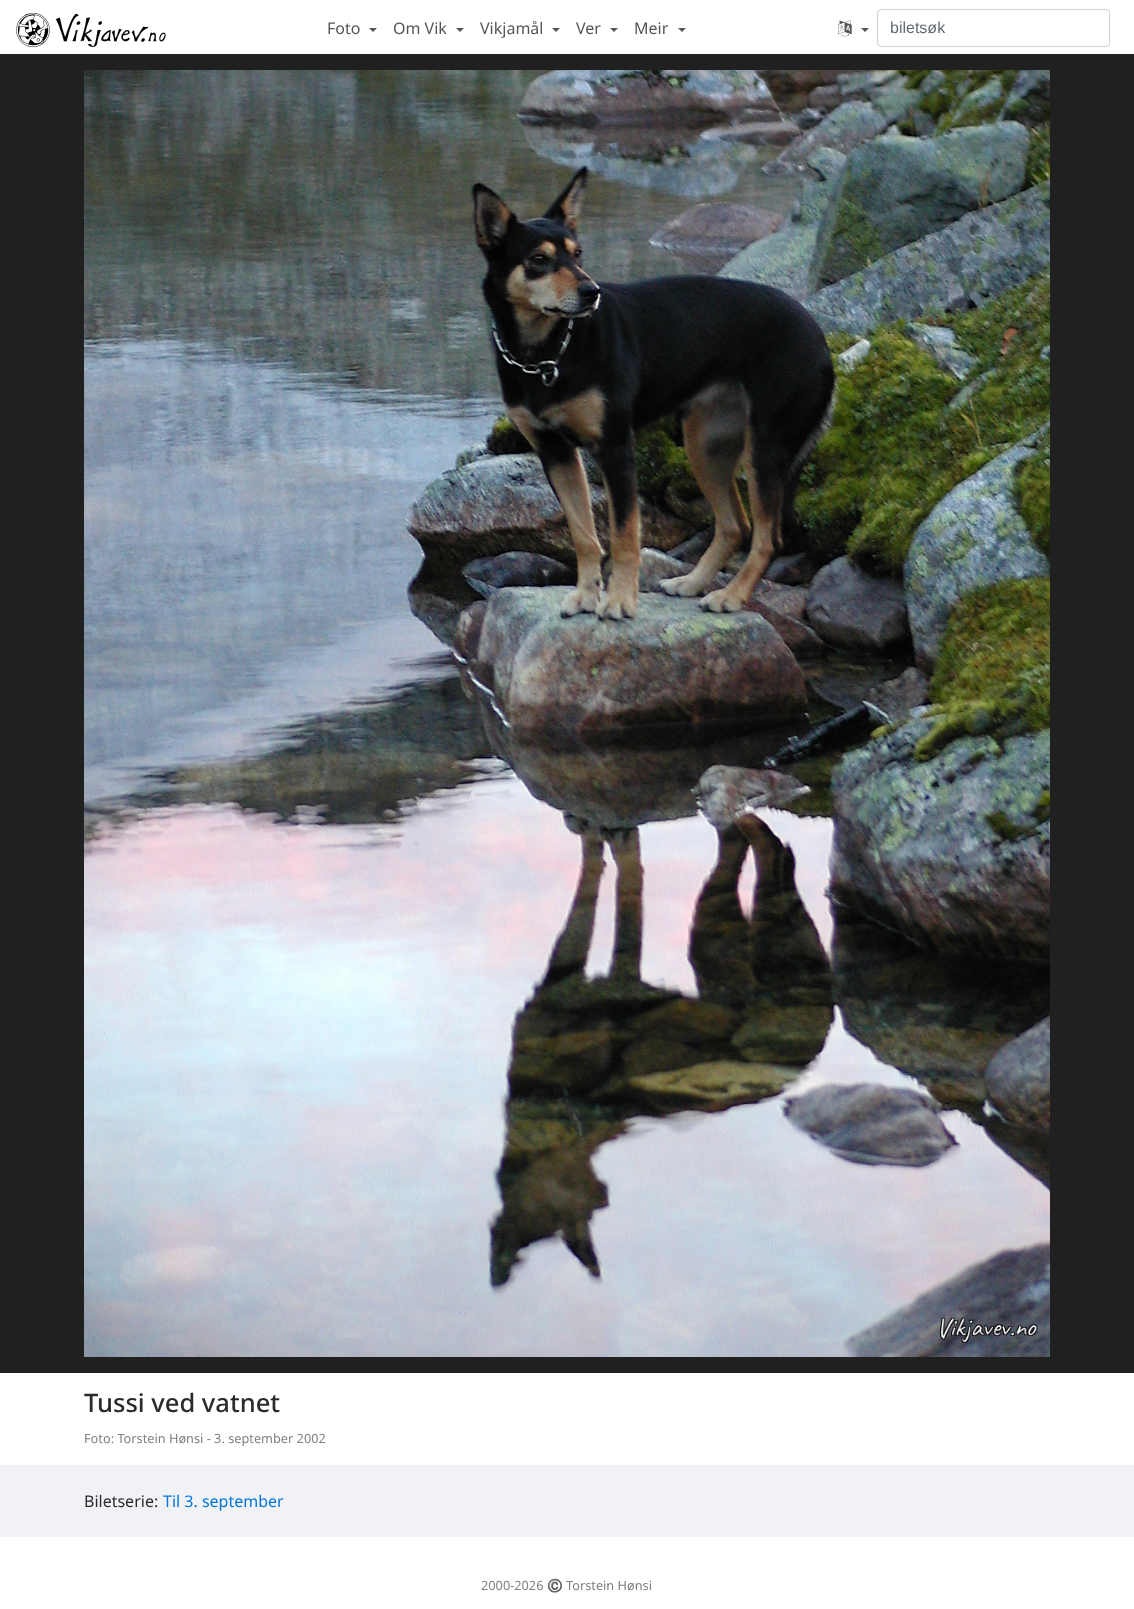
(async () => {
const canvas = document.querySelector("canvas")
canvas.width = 1134
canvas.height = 1609
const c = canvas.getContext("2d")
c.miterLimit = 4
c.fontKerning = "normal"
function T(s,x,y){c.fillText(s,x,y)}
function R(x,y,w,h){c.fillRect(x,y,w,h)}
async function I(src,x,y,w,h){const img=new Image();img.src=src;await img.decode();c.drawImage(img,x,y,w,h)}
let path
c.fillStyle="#fff"
R(0,0,1134,1609)
await I("1.png",16,13,150,34)
c.font="16px Noto Sans"
c.fillStyle="#545556"
T("Foto",327,34)
path = new Path2D("M369 28h8l-4 4z")
c.fill(path)
T("Om Vik",393,34)
path = new Path2D("M456 28h8l-4 4z")
c.fill(path)
T("Vikjamål",480,34)
path = new Path2D("M552 28h8l-4 4z")
c.fill(path)
T("Ver",576,34)
path = new Path2D("M610 28h8l-4 4z")
c.fill(path)
T("Meir",634,34)
path = new Path2D("M678 28h8l-4 4z")
c.fill(path)
await I("2.png",838,20,14,17)
path = new Path2D("M861 28h8l-4 4z")
c.fill(path)
c.beginPath()
c.roundRect(877.5,9.5,232,37,3.5)
c.strokeStyle="#d2d2d2"
c.stroke()
c.font="16px Liberation Sans"
c.fillStyle="#636c72"
T("biletsøk",890,33)
c.fillStyle="#202020"
R(0,54,1134,1319)
await I("3.png",84,70,966,1287)
c.font="500 25.5px Noto Sans"
c.fillStyle="#292b2c"
T("Tussi ved vatnet",84,1412)
c.font="12.75px Noto Sans"
c.fillStyle="#7f8080"
T("Foto: Torstein Hønsi - 3. september 2002",84,1443)
c.fillStyle="#f0f2f5"
R(0,1465,1134,72)
c.font="16px Noto Sans"
c.fillStyle="#292b2c"
T("Biletserie:",84,1507)
c.fillStyle="#0275d8"
T("Til 3. september",163,1507)
c.font="12.75px Noto Sans"
c.fillStyle="#7f8080"
T("2000-2026",481,1590)
c.font="12.75px Noto Color Emoji"
T("©️",547,1590)
c.font="12.75px Noto Sans"
T("Torstein Hønsi",566,1590)
})()
